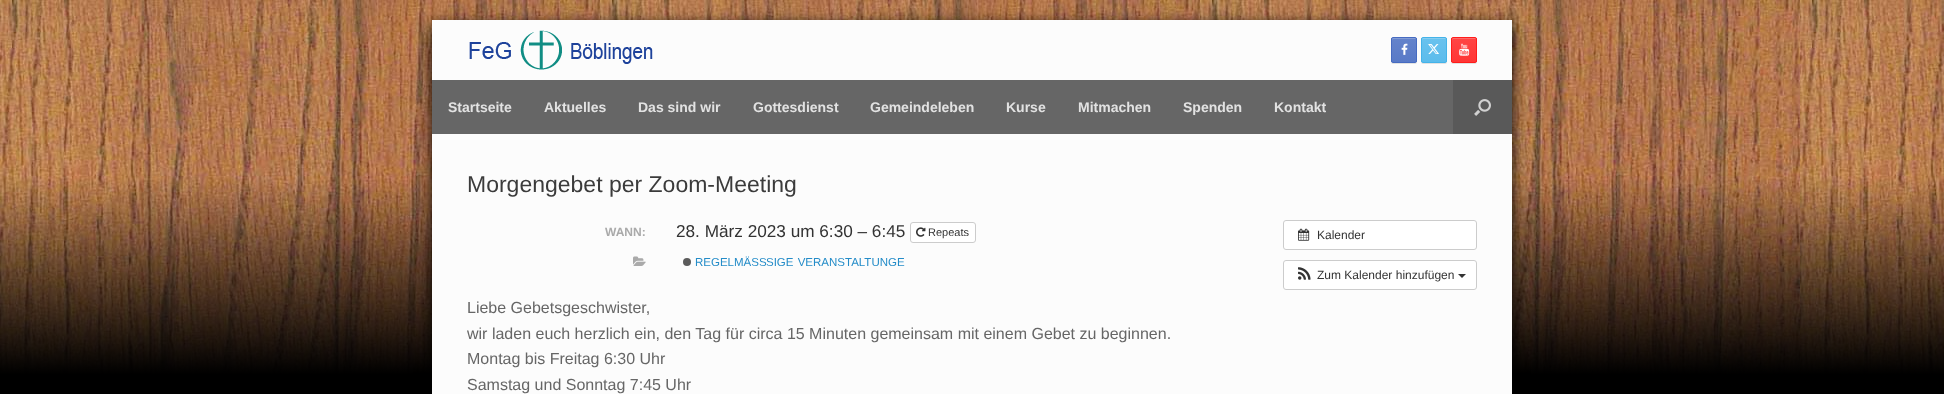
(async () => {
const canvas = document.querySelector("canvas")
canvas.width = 1944
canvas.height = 394
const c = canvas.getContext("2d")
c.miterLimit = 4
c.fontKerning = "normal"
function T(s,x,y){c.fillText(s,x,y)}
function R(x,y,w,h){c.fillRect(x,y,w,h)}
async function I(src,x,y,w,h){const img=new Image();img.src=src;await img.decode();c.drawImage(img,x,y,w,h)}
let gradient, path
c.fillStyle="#fff"
R(0,0,1944,394)
await I("1.png",0,0,1944,394)
c.fillStyle="#000"
c.filter="blur(8px)"
c.beginPath()
c.rect(432,25,1080,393)
c.fill()
c.filter="none"
c.fillStyle="#fcfcfc"
R(432,20,1080,60)
await I("2.png",469,30,184,40)
c.fillStyle="#0000001a"
c.filter="blur(0.5px)"
c.beginPath()
c.roundRect(1391,38,26,26,2)
c.fill()
c.filter="none"
c.save()
c.beginPath()
c.roundRect(1391,37,26,26,2)
c.clip()
gradient = c.createLinearGradient(1404,62,1404,38)
gradient.addColorStop(0,"#597ac7")
gradient.addColorStop(1,"#6483cb")
c.fillStyle = gradient
R(1391,38,26,24)
c.restore()
c.fillStyle="#839cd5"
path = new Path2D("M1393 39h23c0-.5-.5-1-1-1h-22c-.5 0-1 .5-1 1v2c0-1 .5-2 1-2z")
c.fill(path)
c.beginPath()
c.roundRect(1391.5,37.5,25,25,1.5)
c.strokeStyle="#466bc1"
c.stroke()
await I("3.png",1401,43,7,12)
c.fillStyle="#0000001a"
c.filter="blur(0.5px)"
c.beginPath()
c.roundRect(1421,38,26,26,2)
c.fill()
c.filter="none"
c.save()
c.beginPath()
c.roundRect(1421,37,26,26,2)
c.clip()
gradient = c.createLinearGradient(1434,62,1434,38)
gradient.addColorStop(0,"#5bbcec")
gradient.addColorStop(1,"#69c2ee")
c.fillStyle = gradient
R(1421,38,26,24)
c.restore()
c.fillStyle="#87cef1"
path = new Path2D("M1423 39h23c0-.5-.5-1-1-1h-22c-.5 0-1 .5-1 1v2c0-1 .5-2 1-2z")
c.fill(path)
c.beginPath()
c.roundRect(1421.5,37.5,25,25,1.5)
c.strokeStyle="#44b3e9"
c.stroke()
await I("4.png",1428,44,11,10)
c.fillStyle="#0000001a"
c.filter="blur(0.5px)"
c.beginPath()
c.roundRect(1451,38,26,26,2)
c.fill()
c.filter="none"
c.save()
c.beginPath()
c.roundRect(1451,37,26,26,2)
c.clip()
gradient = c.createLinearGradient(1464,62,1464,38)
gradient.addColorStop(0,"#ff3635")
gradient.addColorStop(1,"#ff4544")
c.fillStyle = gradient
R(1451,38,26,24)
c.restore()
c.fillStyle="#ff6a69"
path = new Path2D("M1453 39h23c0-.5-.5-1-1-1h-22c-.5 0-1 .5-1 1v2c0-1 .5-2 1-2z")
c.fill(path)
c.beginPath()
c.roundRect(1451.5,37.5,25,25,1.5)
c.strokeStyle="#ff1d1b"
c.stroke()
await I("5.png",1459,43,11,13)
c.fillStyle="#666"
R(432,80,1021,54)
c.font="bold 14px Liberation Sans"
c.fillStyle="#e2e2e2"
T("Startseite",448,112)
T("Aktuelles",544,112)
T("Das sind wir",638,112)
T("Gottesdienst",753,112)
T("Gemeindeleben",870,112)
T("Kurse",1006,112)
T("Mitmachen",1078,112)
T("Spenden",1183,112)
T("Kontakt",1274,112)
c.fillStyle="#595959"
R(1453,80,59,54)
await I("6.png",1474,99,17,17)
c.fillStyle="#fcfcfc"
R(432,134,1080,260)
c.font="23px Liberation Sans"
c.fillStyle="#3b3b3b"
T("Morgengebet per Zoom-Meeting",467,192)
c.font="bold 12px Liberation Sans"
c.fillStyle="#aaa"
T("WANN:",605,236)
c.font="17.2px Liberation Sans"
c.fillStyle="#333"
T("28. März 2023 um 6:30 – 6:45",676,237)
c.fillStyle="#fff"
c.beginPath()
c.roundRect(910.5,222.5,65,20,2.5)
c.fill()
c.strokeStyle="#ccc"
c.stroke()
await I("7.png",916,227,10,10)
c.font="11px Liberation Sans"
c.fillStyle="#333"
T("Repeats",928,236)
await I("8.png",633,256,13,10)
c.fillStyle="#5b5b5b"
c.beginPath()
c.arc(687,262,4,0,7)
c.fill()
c.font="11.5px Liberation Sans"
c.fillStyle="#248cc8"
T("REGELMÄSS",695,266)
c.wordSpacing="1px"
T("SIGE VERANSTALTUNGE",766,266)
c.fillStyle="#fff"
c.beginPath()
c.roundRect(1283.5,220.5,193,29,2.5)
c.fill()
c.stroke()
await I("9.png",1298,228,12,13)
c.wordSpacing="0px"
c.font="12px Liberation Sans"
c.fillStyle="#333"
T("Kalender",1317,239)
c.fillStyle="#fff"
c.beginPath()
c.roundRect(1283.5,260.5,193,29,2.5)
c.fill()
c.stroke()
await I("10.png",1298,267,13,13)
c.fillStyle="#333"
T("Zum Kalender hinzufügen",1317,279)
path = new Path2D("M1458 274h8l-4 4z")
c.fill(path)
c.font="16px Liberation Sans"
c.fillStyle="#666"
T("Liebe Gebetsgeschwister,",467,313)
T("wir laden euch herzlich ein, den Tag für circa 15 Minuten gemeinsam mit einem Gebet zu beginnen.",467,339)
T("Montag bis Freitag 6:30 Uhr",467,364)
T("Samstag und Sonntag 7:45 Uhr",467,390)
})()
